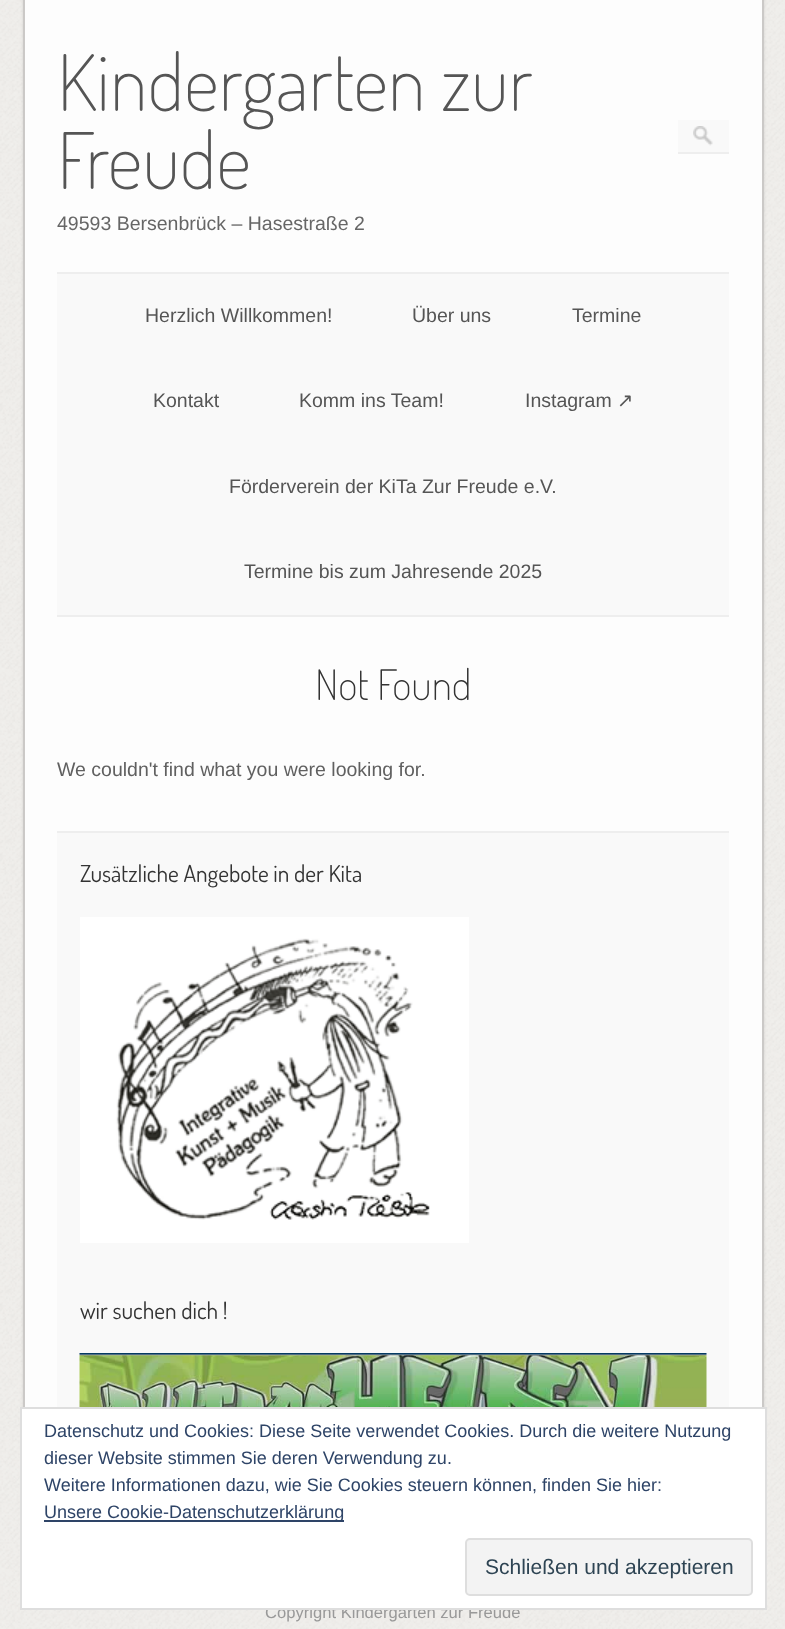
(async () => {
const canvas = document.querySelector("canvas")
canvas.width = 785
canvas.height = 1629
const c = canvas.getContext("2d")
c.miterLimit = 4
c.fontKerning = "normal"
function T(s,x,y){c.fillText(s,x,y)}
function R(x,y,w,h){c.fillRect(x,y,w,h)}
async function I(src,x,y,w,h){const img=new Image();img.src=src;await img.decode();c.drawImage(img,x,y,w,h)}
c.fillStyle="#fff"
R(0,0,785,1629)
await I("1.png",0,0,785,1629)
c.fillStyle="#0000001a"
c.filter="blur(1.5px)"
c.beginPath()
c.rect(23,-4,741,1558)
c.fill()
c.filter="none"
c.fillStyle="#fdfdfd"
R(25,0,737,1407)
c.strokeStyle="#cbc9c7"
c.lineWidth=2
c.strokeRect(24,-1,739,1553)
c.font="200 78px 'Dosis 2'"
c.fillStyle="#555"
T("Kindergarten zur",57,111)
T("Freude",57,189)
c.font="19.5px Liberation Sans"
c.fillStyle="#666"
T("49593 Bersenbrück – Hasestraße 2",57,230)
c.fillStyle="#f9f9f9"
R(678,120,51,32)
await I("2.png",693,126,20,20)
c.fillStyle="#eee"
R(678,152,51,2)
c.fillStyle="#f9f9f9"
R(57,274,672,341)
c.fillStyle="#eee"
R(57,272,672,2)
R(57,615,672,2)
c.fillStyle="#555"
T("Herzlich Willkommen!",145,322)
T("Über uns",412,322)
T("Termine",572,322)
T("Kontakt",153,407)
T("Komm ins Team!",299,407)
T("Instagram",525,407)
c.font="19.5px DejaVu Sans"
T("↗",617,407)
c.font="19.5px Liberation Sans"
T("Förderverein der KiTa Zur Freude e.V.",229,493)
T("Termine bis zum Jahresende 2025",244,578)
c.font="200 42px Dosis"
c.fillStyle="#333"
T("Not Found",315,700)
c.font="19.5px Liberation Sans"
c.fillStyle="#606060"
T("We couldn't find what you were looking for.",57,776)
c.fillStyle="#f9f9f9"
R(57,833,672,574)
c.fillStyle="#eee"
R(57,831,672,2)
c.font="23.4px Dosis"
c.fillStyle="#333"
T("Zusätzliche Angebote in der Kita",80,882)
await I("3.png",80,917,389,326)
T("wir suchen dich !",80,1319)
await I("4.png",79,1353,628,54)
c.font="16.6px Liberation Sans"
c.fillStyle="#999"
T("Copyright Kindergarten zur Freude",265,1618)
c.fillStyle="#fff"
c.beginPath()
c.rect(21,1408,745,201)
c.fill()
c.strokeStyle="#dedede"
c.stroke()
c.font="18px Liberation Sans"
c.fillStyle="#2e4467"
T("Datenschutz und Cookies: Diese Seite verwendet Cookies. Durch die weitere Nutzung",44,1437)
T("dieser Website stimmen Sie deren Verwendung zu.",44,1464)
T("Weitere Informationen dazu, wie Sie Cookies steuern können, finden Sie hier:",44,1491)
R(44,1520,300,2)
T("Unsere Cookie-Datenschutzerklärung",44,1518)
c.fillStyle="#f3f3f3"
c.beginPath()
c.roundRect(466,1539,286,56,4)
c.fill()
c.stroke()
c.font="21px Liberation Sans"
c.fillStyle="#2e4453"
T("Schließen und akzeptieren",485,1574)
})()
